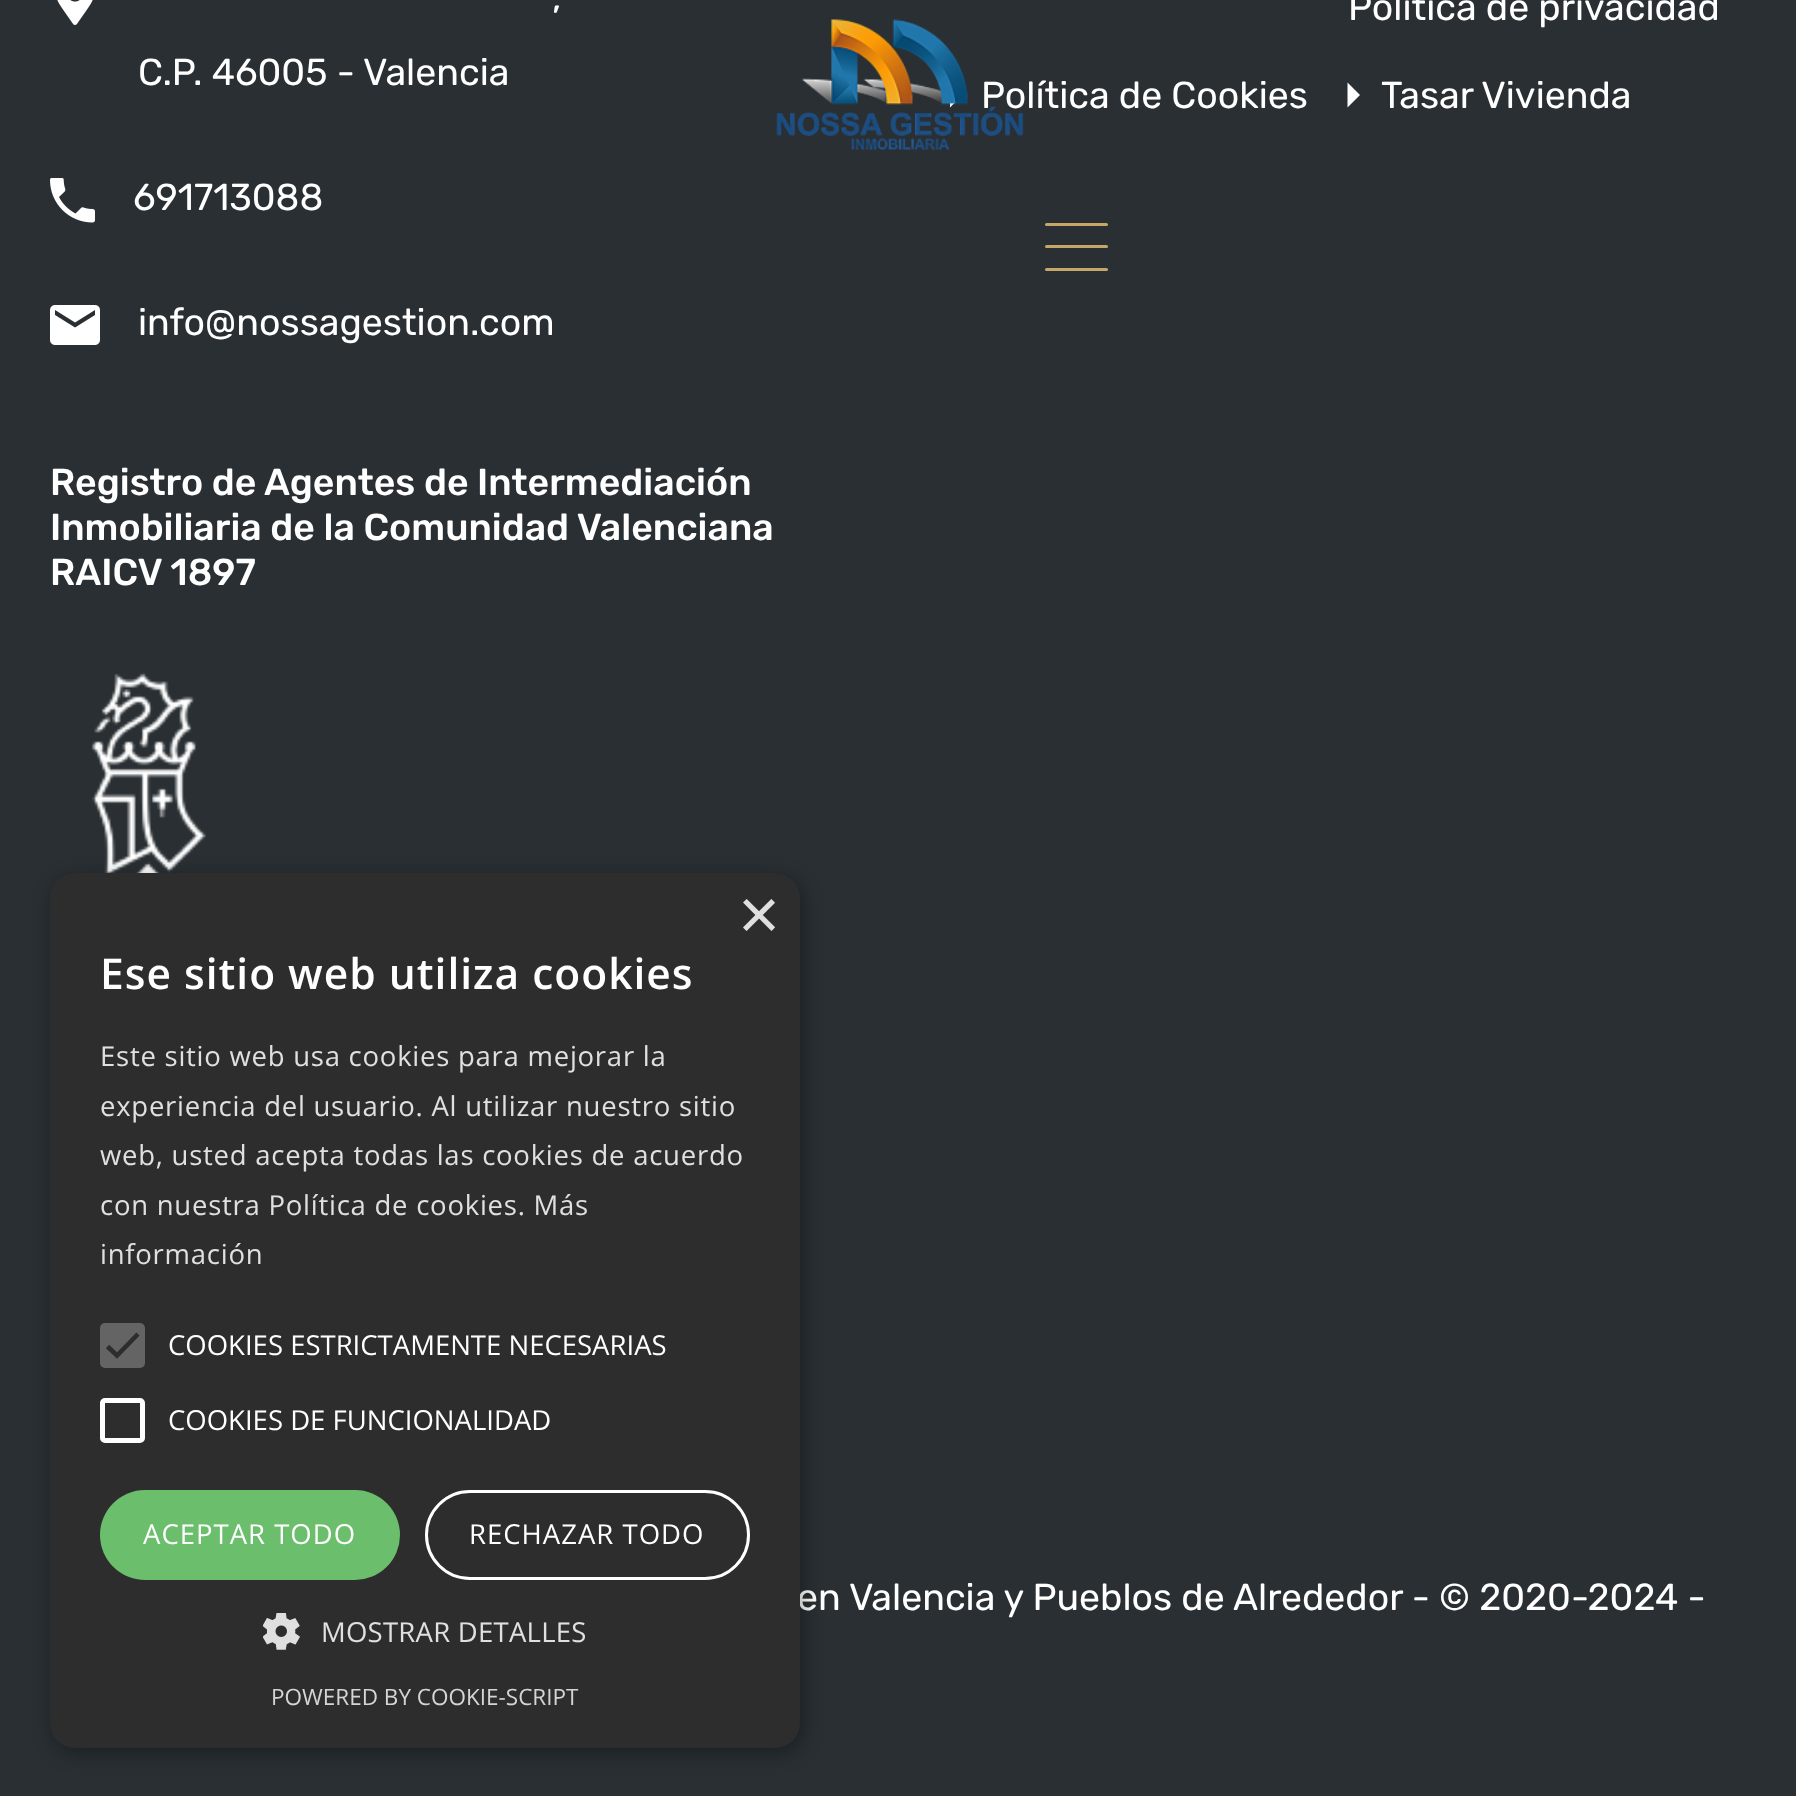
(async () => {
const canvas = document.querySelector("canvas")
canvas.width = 1796
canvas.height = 1796
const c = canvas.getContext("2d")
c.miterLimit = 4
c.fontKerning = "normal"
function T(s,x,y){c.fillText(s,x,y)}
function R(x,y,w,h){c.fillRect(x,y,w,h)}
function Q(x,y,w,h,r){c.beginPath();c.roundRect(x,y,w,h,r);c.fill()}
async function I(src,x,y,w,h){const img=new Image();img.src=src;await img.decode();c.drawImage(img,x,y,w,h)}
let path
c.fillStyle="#292f33"
R(0,0,1796,1796)
await I("1.png",57,0,36,25)
c.font="37.5px Rubik"
c.fillStyle="#fff"
T(",",552,10)
T("C.P. 46005 - Valencia",138,85)
await I("2.png",50,178,45,45)
T("691713088",133,210)
await I("3.png",50,305,50,40)
T("info@nossagestion.com",138,335)
T("Política de privacidad",1348,20)
path = new Path2D("M950 107.5v-25l12.5 12.5z")
c.fill(path)
T("Política de Cookies",981,108)
path = new Path2D("M1347.5 107.5v-25l12.5 12.5z")
c.fill(path)
T("Tasar Vivienda",1381,108)
c.font="500 37.5px Rubik"
T("Registro de Agentes de Intermediación",50,495)
T("Inmobiliaria de la Comunidad Valenciana",50,540)
T("RAICV 1897",50,585)
await I("4.png",91,672,115,201)
c.font="37.5px Rubik"
T("en Valencia y Pueblos de Alrededor - © 2020-2024 -",797,1610)
await I("5.png",776,19,248,131)
c.fillStyle="#c5a769"
Q(1045,245,63,3,1.5)
Q(1045,223,63,3,1.5)
Q(1045,268,63,3,1.5)
c.fillStyle="#00000059"
c.filter="blur(10px)"
c.beginPath()
c.roundRect(53,878,750,875,25)
c.fill()
c.filter="none"
c.fillStyle="#2d2d2d"
Q(50,873,750,875,25)
c.font="72px Liberation Sans"
c.fillStyle="#e0e0e0"
T("×",738,939)
c.letterSpacing="1px"
c.font="600 42.5px Open Sans"
c.fillStyle="#fff"
T("Ese sitio web utiliza cookies",100,989)
c.letterSpacing="0.75px"
c.font="27.5px Open Sans"
c.fillStyle="#e0e0e0"
T("Este sitio web usa cookies para mejorar la",100,1066)
T("experiencia del usuario. Al utilizar nuestro sitio",100,1116)
T("web, usted acepta todas las cookies de acuerdo",100,1165)
T("con nuestra Política de cookies. Más",100,1215)
T("información",100,1264)
c.fillStyle="#646464"
Q(100,1323,45,45,5)
path = new Path2D("M107.5 1346.5l9.5 9l21-21.5")
c.strokeStyle="#2d2d2d"
c.lineWidth=4.6
c.stroke(path)
c.letterSpacing="0px"
c.fillStyle="#fff"
T("COOKIES ESTRICTAMENTE NECESARIAS",168,1355)
c.beginPath()
c.roundRect(102.5,1400.5,40,40,2.5)
c.strokeStyle="#fff"
c.lineWidth=5
c.stroke()
T("COOKIES DE FUNCIONALIDAD",168,1430)
c.fillStyle="#6bbe6b"
Q(100,1490,300,90,45)
c.letterSpacing="1px"
c.fillStyle="#fff"
T("ACEPTAR TODO",143,1544)
c.beginPath()
c.roundRect(426.5,1491.5,322,87,43.5)
c.lineWidth=3
c.stroke()
T("RECHAZAR TODO",469,1544)
await I("6.png",263,1613,37,37)
c.letterSpacing="0.25px"
c.fillStyle="#e0e0e0"
T("MOSTRAR DETALLES",321,1642)
c.letterSpacing="0px"
c.font="22.5px Open Sans"
c.fillStyle="#d5d5d5"
T("POWERED BY COOKIE-SCRIPT",271,1705)
})()
